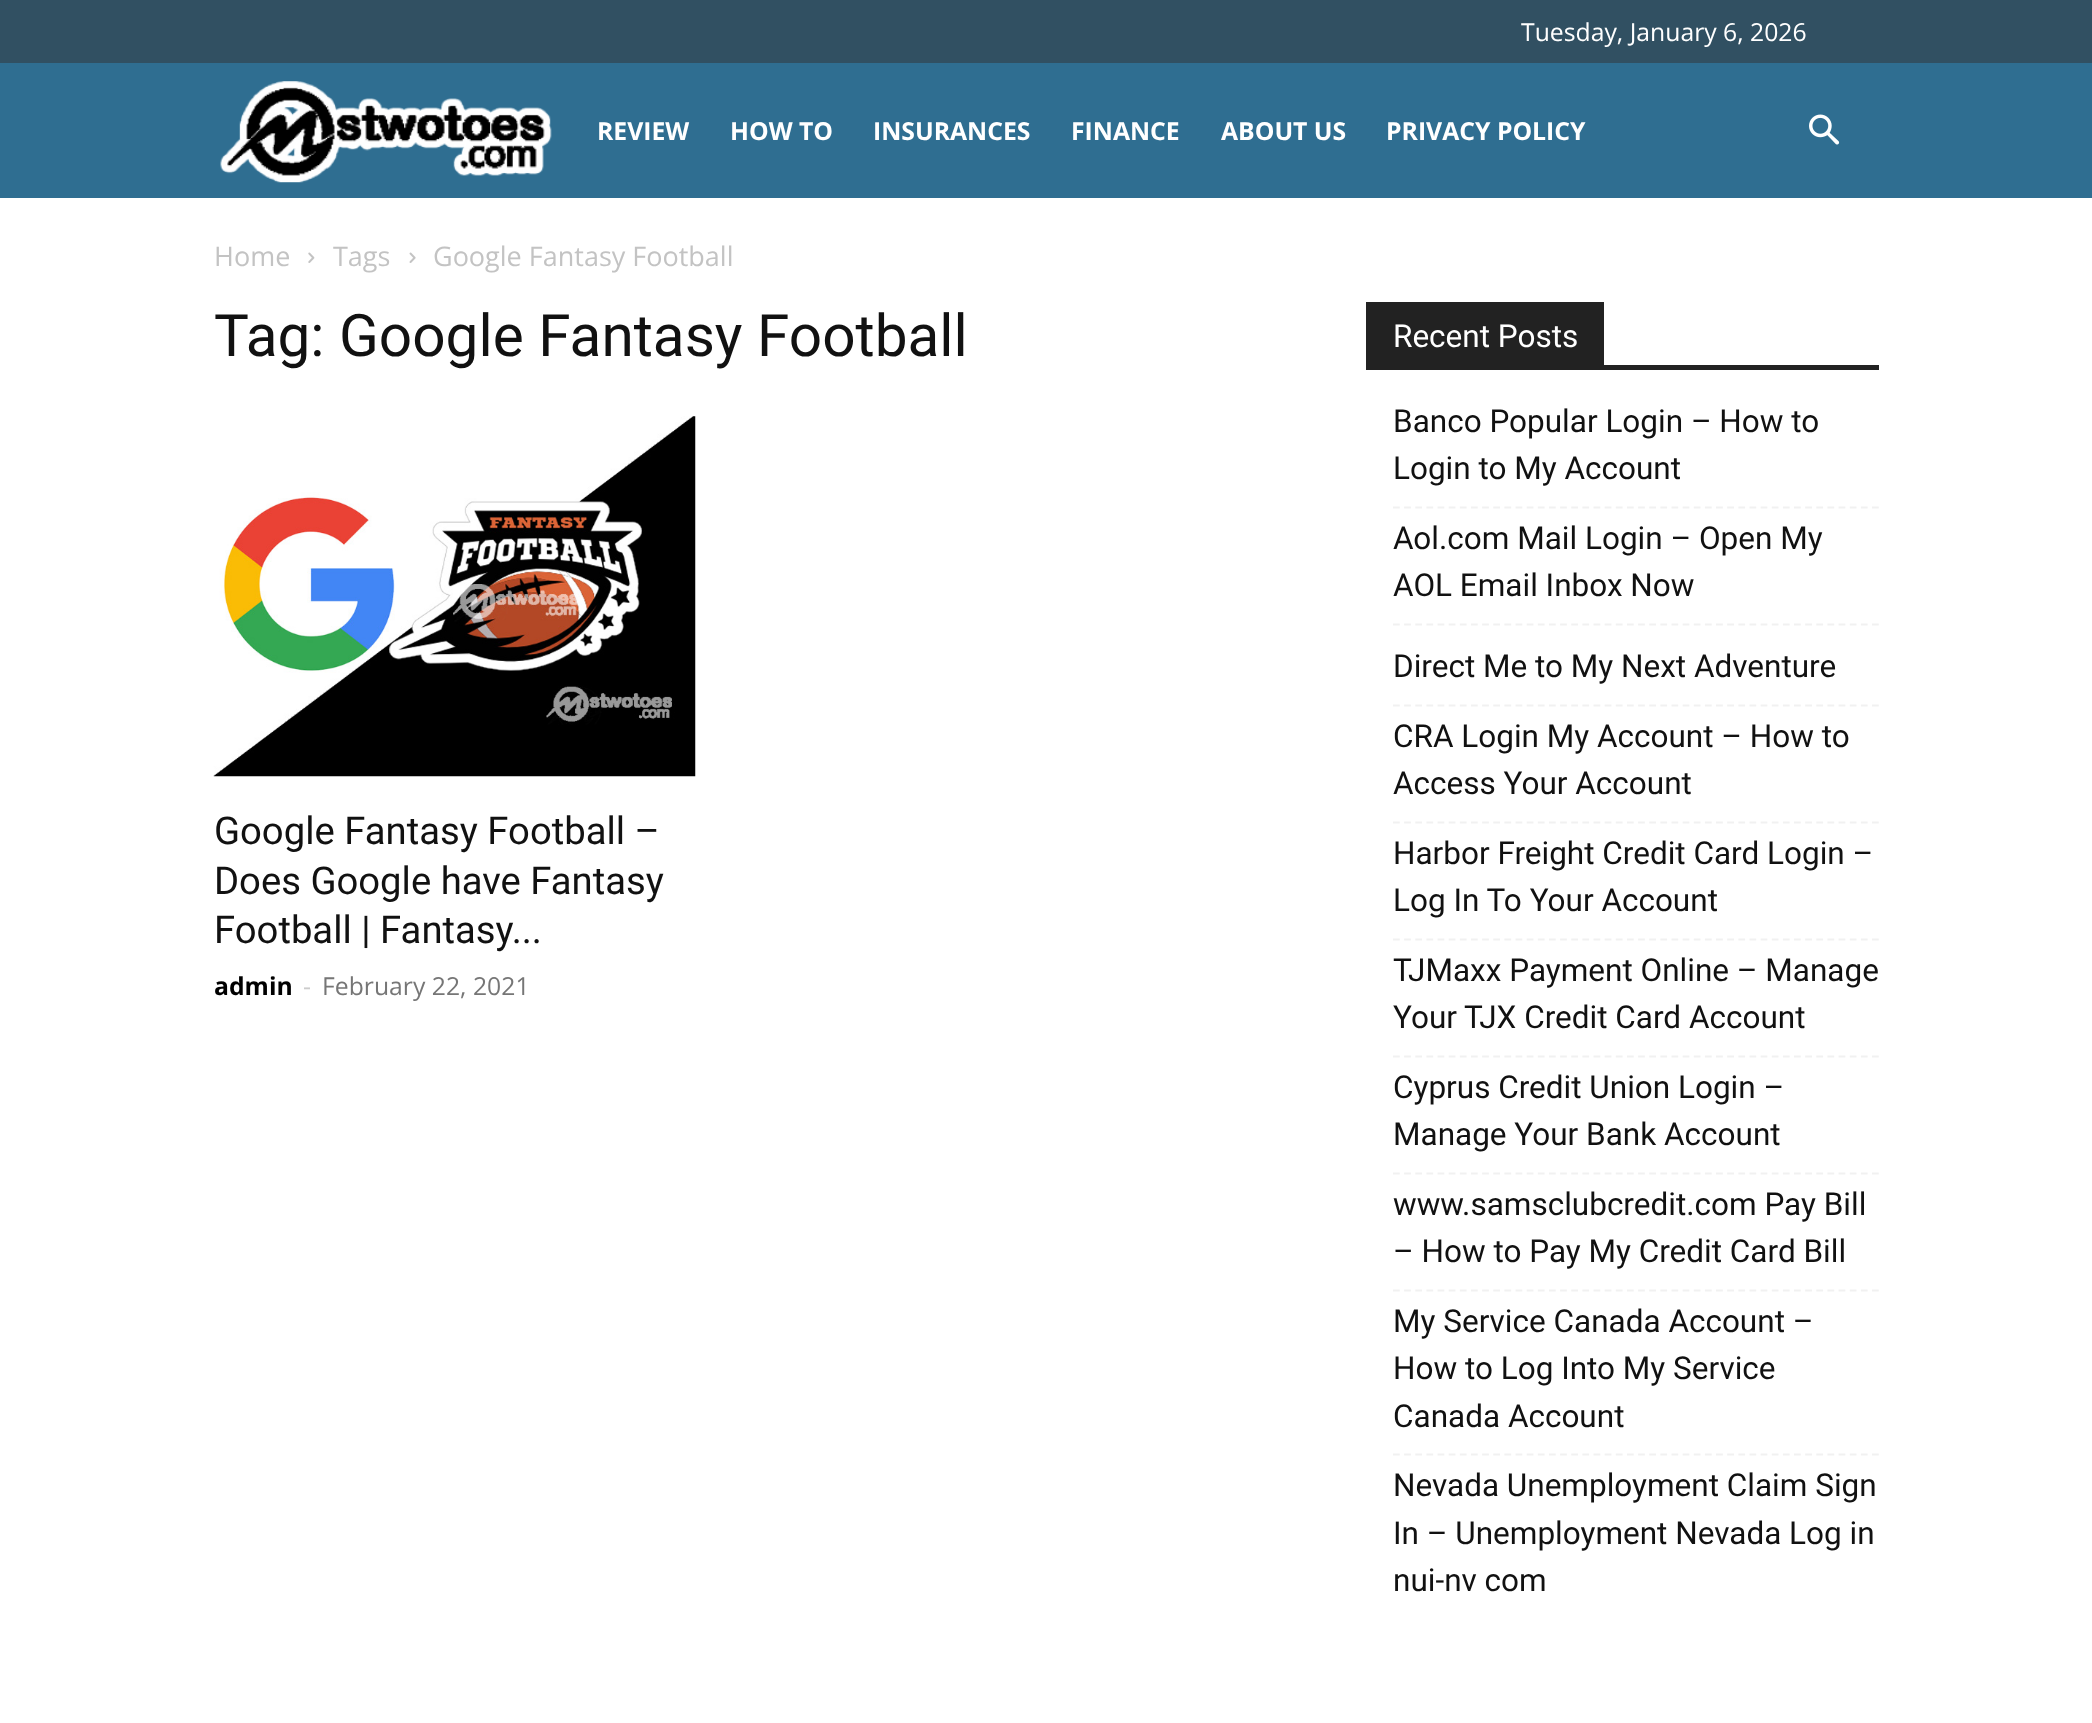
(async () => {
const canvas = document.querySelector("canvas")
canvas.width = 2092
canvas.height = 1723
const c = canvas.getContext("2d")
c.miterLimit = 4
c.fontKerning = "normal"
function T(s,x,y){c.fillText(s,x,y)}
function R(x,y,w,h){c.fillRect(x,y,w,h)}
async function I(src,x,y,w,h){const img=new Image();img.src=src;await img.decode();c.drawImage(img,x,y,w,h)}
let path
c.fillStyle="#fff"
R(0,0,2092,1723)
c.fillStyle="#315062"
R(0,0,2092,63)
c.font="24.75px Open Sans"
c.fillStyle="#fff"
T("Tuesday, January 6, 2026",1521,41)
c.fillStyle="#2f6e91"
R(0,63,2092,135)
await I("1.png",220,81,332,102)
c.font="bold 24.75px Open Sans"
c.fillStyle="#fff"
T("REVIEW",597,140)
T("HOW TO",730,140)
T("INSURANCES",873,140)
T("FINANCE",1071,140)
T("ABOUT US",1221,140)
T("PRIVACY POLICY",1386,140)
await I("2.png",1809,114,31,31)
c.font="27px Open Sans"
c.fillStyle="#c3c3c3"
T("Home",214,266)
await I("3.png",308,252,7,11)
T("Tags",333,266)
await I("4.png",409,252,7,11)
T("Google Fantasy Football",433,266)
c.font="58.5px Roboto"
c.fillStyle="#111"
T("Tag: Google Fantasy Football",214,356)
await I("5.png",213,416,483,361)
c.font="38.25px Roboto"
T("Google Fantasy Football –",214,844)
T("Does Google have Fantasy",214,894)
T("Football | Fantasy...",214,943)
c.font="bold 24.75px Open Sans"
c.fillStyle="#000"
T("admin",214,995)
c.font="24.75px Open Sans"
c.fillStyle="#ccc"
T("-",303,995)
c.fillStyle="#767676"
T("February 22, 2021",322,995)
c.fillStyle="#222"
R(1366,365,513,5)
R(1366,302,238,63)
c.font="31.5px Roboto"
c.fillStyle="#fff"
T("Recent Posts",1393,347)
path = new Path2D("M1393 507.5h486")
c.strokeStyle="#f1f1f1"
c.lineWidth=2.2
c.setLineDash([6.75,4.39])
c.stroke(path)
c.fillStyle="#111"
T("Banco Popular Login – How to",1393,432)
T("Login to My Account",1393,479)
path = new Path2D("M1393 624.5h486")
c.stroke(path)
T("Aol.com Mail Login – Open My",1393,549)
T("AOL Email Inbox Now",1393,596)
path = new Path2D("M1393 705.5h486")
c.stroke(path)
T("Direct Me to My Next Adventure",1393,677)
path = new Path2D("M1393 822.5h486")
c.stroke(path)
T("CRA Login My Account – How to",1393,747)
T("Access Your Account",1393,794)
path = new Path2D("M1393 939.5h486")
c.stroke(path)
T("Harbor Freight Credit Card Login –",1393,864)
T("Log In To Your Account",1393,911)
path = new Path2D("M1393 1056.5h486")
c.stroke(path)
T("TJMaxx Payment Online – Manage",1393,981)
T("Your TJX Credit Card Account",1393,1028)
path = new Path2D("M1393 1173.5h486")
c.stroke(path)
T("Cyprus Credit Union Login –",1393,1098)
T("Manage Your Bank Account",1393,1145)
path = new Path2D("M1393 1290.5h486")
c.stroke(path)
T("www.samsclubcredit.com Pay Bill",1393,1215)
T("– How to Pay My Credit Card Bill",1393,1262)
path = new Path2D("M1393 1454.5h486")
c.stroke(path)
T("My Service Canada Account –",1393,1332)
T("How to Log Into My Service",1393,1379)
T("Canada Account",1393,1427)
T("Nevada Unemployment Claim Sign",1393,1496)
T("In – Unemployment Nevada Log in",1393,1544)
T("nui-nv com",1393,1591)
})()
